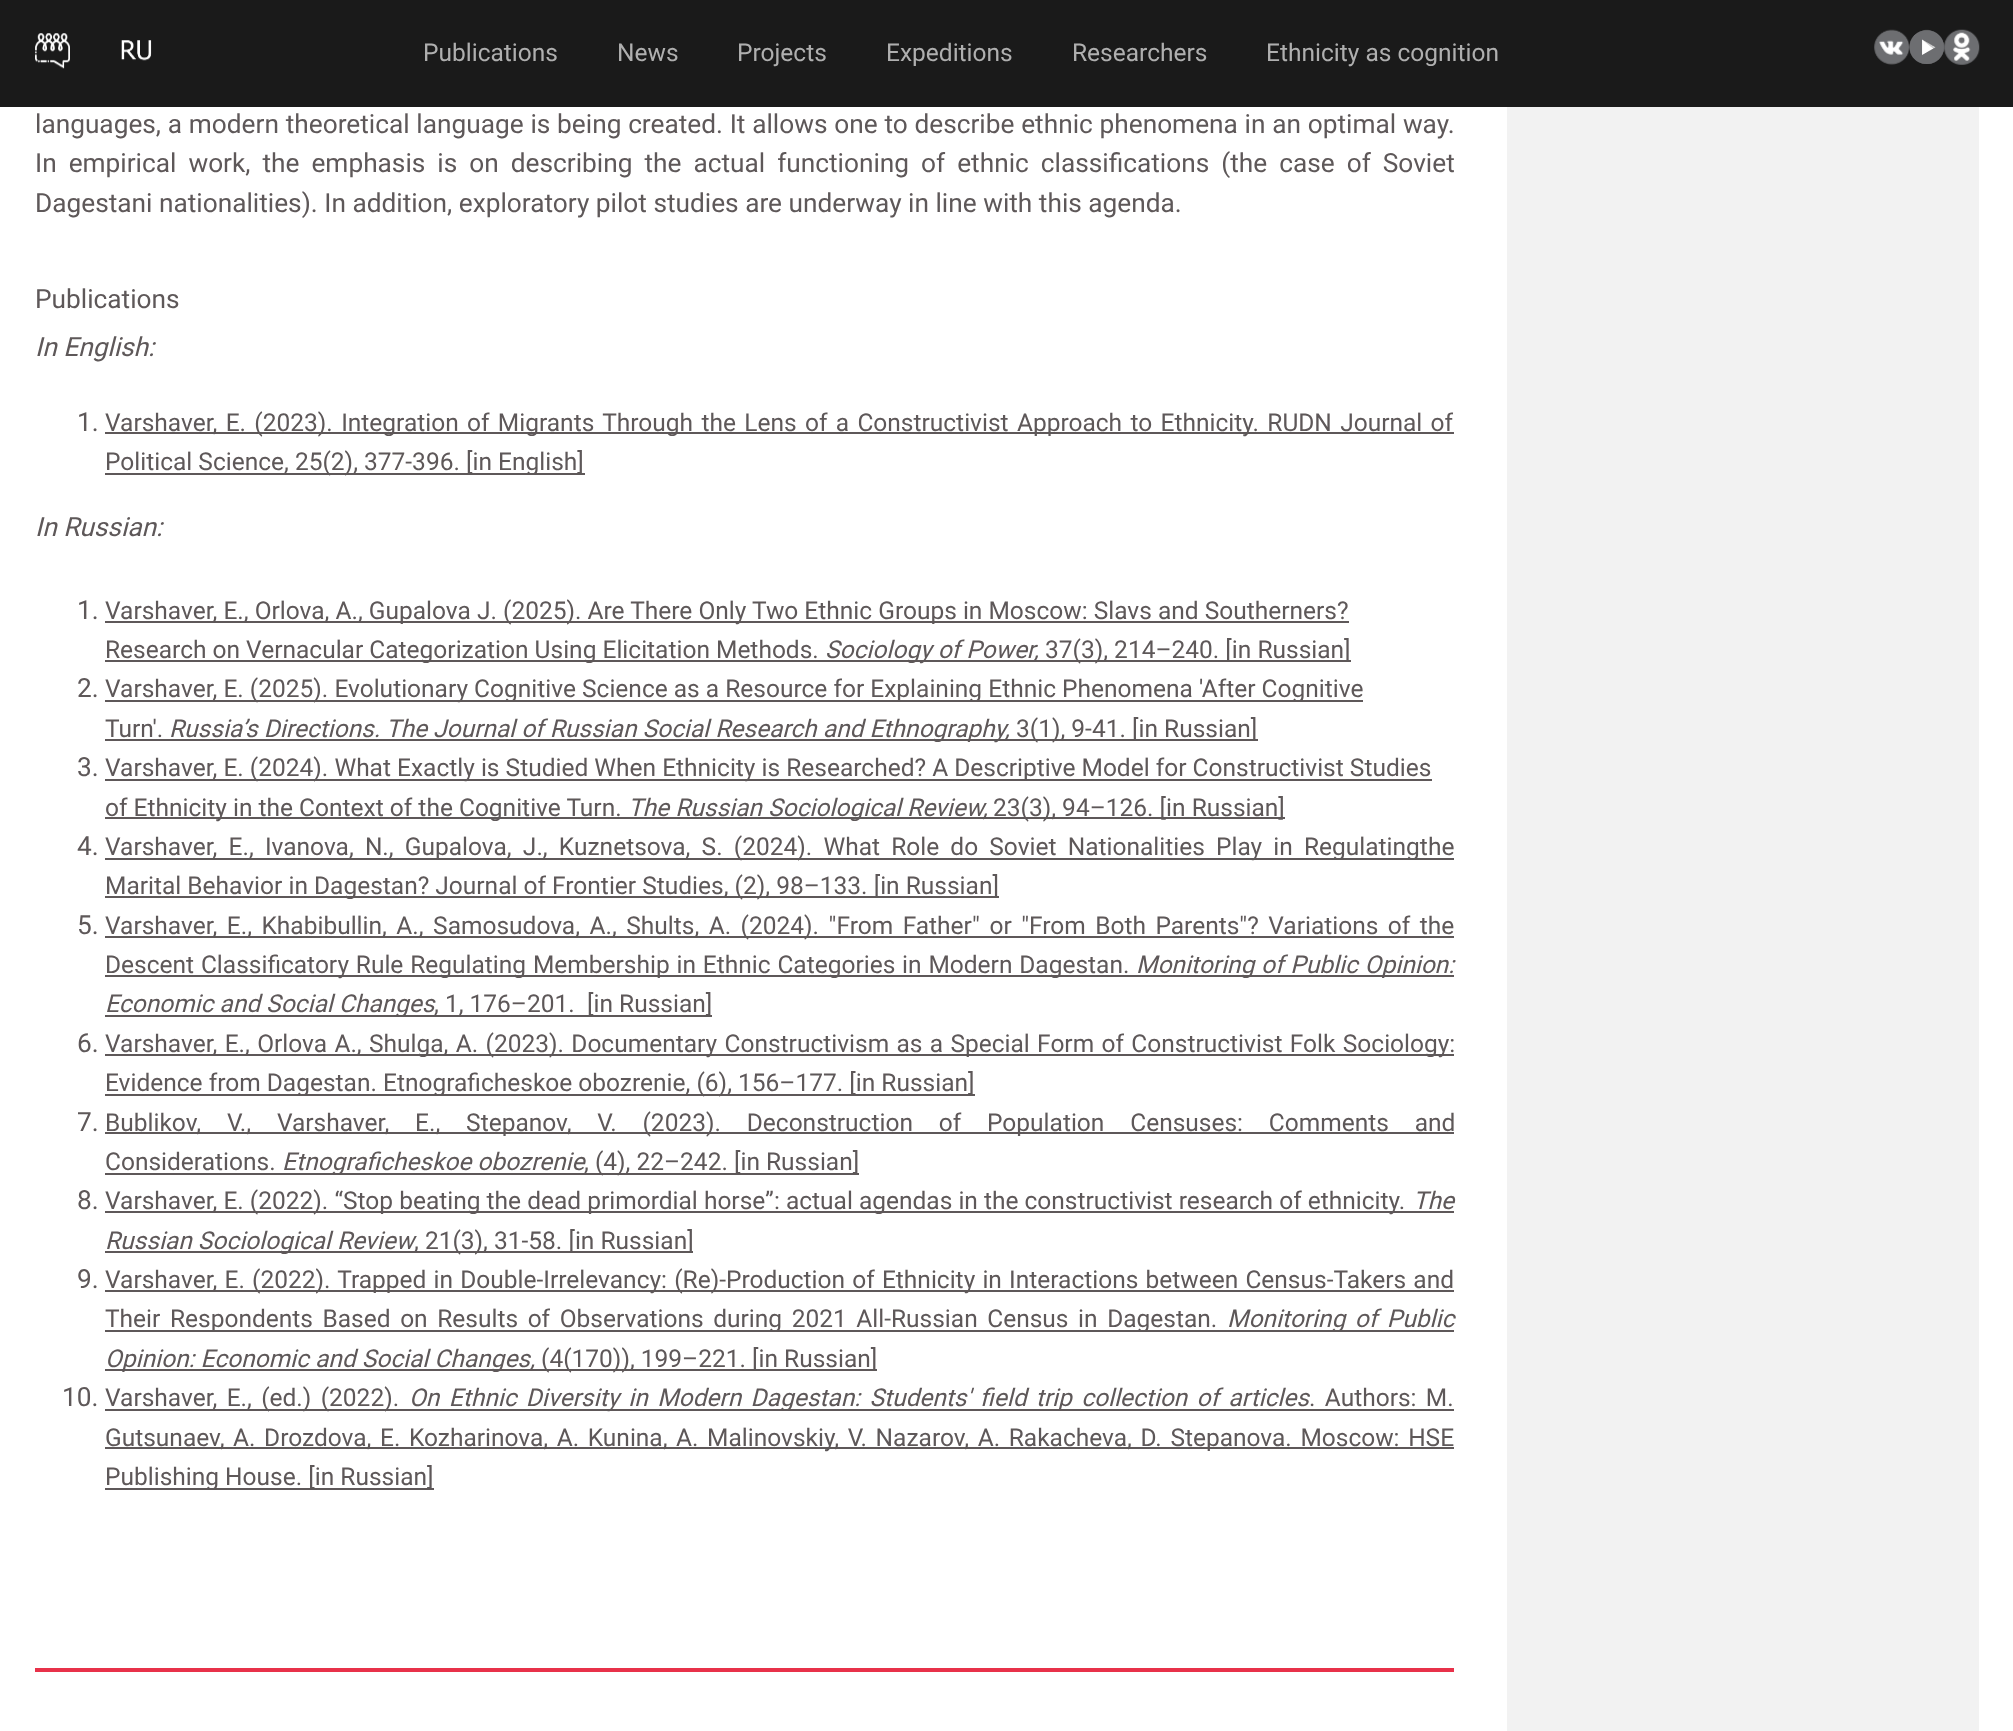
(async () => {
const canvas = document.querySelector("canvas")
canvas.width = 2013
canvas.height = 1731
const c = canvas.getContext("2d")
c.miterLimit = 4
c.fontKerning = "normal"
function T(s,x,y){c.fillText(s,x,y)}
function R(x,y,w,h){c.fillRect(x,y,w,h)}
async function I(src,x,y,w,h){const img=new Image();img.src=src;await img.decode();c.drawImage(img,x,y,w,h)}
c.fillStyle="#fff"
R(0,0,2013,1731)
c.fillStyle="#1a1a1a"
R(0,0,2013,107)
await I("1.png",35,33,35,36)
await I("2.png",121,40,31,21)
c.font="24.5px Roboto"
c.fillStyle="#afafaf"
T("Publications",423,61)
T("News",617,61)
T("Projects",737,61)
T("Expeditions",886,61)
T("Researchers",1072,61)
T("Ethnicity as cognition",1266,61)
await I("3.png",1874,29,36,36)
await I("4.png",1909,29,36,35)
await I("5.png",1944,29,36,36)
c.fillStyle="#e8314a"
R(35,1668,1419,4)
c.wordSpacing="0.25px"
c.font="26.25px Roboto"
c.fillStyle="#5e5859"
T("languages, a modern theoretical language is being created. It allows one to describe ethnic phenomena in an optimal way.",35,133)
c.wordSpacing="5.5px"
T("In empirical work, the emphasis is on describing the actual functioning of ethnic classifications (the case of Soviet",35,172)
c.wordSpacing="0px"
T("Dagestani nationalities). In addition, exploratory pilot studies are underway in line with this agenda.",35,212)
T("Publications",35,308)
c.font="italic 26.25px Roboto"
T("In English:",35,356)
c.font="26.25px Roboto"
T("1.",77,431)
R(105,432,1349,2)
c.wordSpacing="2.25px"
c.font="24.5px Roboto"
T("Varshaver, E. (2023). Integration of Migrants Through the Lens of a Constructivist Approach to Ethnicity. RUDN Journal of",105,431)
R(105,473,480,2)
c.wordSpacing="0px"
T("Political Science, 25(2), 377-396. [in English]",105,470)
c.font="italic 26.25px Roboto"
T("In Russian:",35,536)
c.font="26.25px Roboto"
T("1.",77,619)
R(105,621,1244,2)
c.font="24.5px Roboto"
T("Varshaver, E., Orlova, A., Gupalova J. (2025). Are There Only Two Ethnic Groups in Moscow: Slavs and Southerners?",105,619)
R(105,660,1246,2)
T("Research on Vernacular Categorization Using Elicitation Methods.",105,658)
c.font="italic 24.5px Roboto"
T("Sociology of Power,",825,658)
c.font="24.5px Roboto"
T("37(3), 214–240. [in Russian]",1045,658)
c.font="26.25px Roboto"
T("2.",77,697)
R(105,700,1258,2)
c.font="24.5px Roboto"
T("Varshaver, E. (2025). Evolutionary Cognitive Science as a Resource for Explaining Ethnic Phenomena 'After Cognitive",105,697)
T("Turn'.",105,737)
R(105,739,1153,2)
c.font="italic 24.5px Roboto"
T("Russia’s Directions. The Journal of Russian Social Research and Ethnography,",169,737)
c.font="24.5px Roboto"
T("3(1), 9-41. [in Russian]",1016,737)
c.font="26.25px Roboto"
T("3.",77,776)
R(105,779,1327,2)
c.font="24.5px Roboto"
T("Varshaver, E. (2024). What Exactly is Studied When Ethnicity is Researched? A Descriptive Model for Constructivist Studies",105,776)
R(105,817,1180,2)
T("of Ethnicity in the Context of the Cognitive Turn.",105,816)
c.font="italic 24.5px Roboto"
T("The Russian Sociological Review,",628,816)
c.font="24.5px Roboto"
T("23(3), 94–126. [in Russian]",993,816)
c.font="26.25px Roboto"
T("4.",77,855)
R(105,858,1349,2)
c.wordSpacing="5.1px"
c.font="24.5px Roboto"
T("Varshaver, E., Ivanova, N., Gupalova, J., Kuznetsova, S. (2024). What Role do Soviet Nationalities Play in Regulatingthe",105,855)
R(105,896,894,2)
c.wordSpacing="0px"
T("Marital Behavior in Dagestan? Journal of Frontier Studies, (2), 98–133. [in Russian]",105,894)
c.font="26.25px Roboto"
T("5.",77,934)
R(105,936,1349,2)
c.wordSpacing="3.4px"
c.font="24.5px Roboto"
T("Varshaver, E., Khabibullin, A., Samosudova, A., Shults, A. (2024). \"From Father\" or \"From Both Parents\"? Variations of the",105,934)
R(105,975,1349,2)
c.wordSpacing="0.75px"
T("Descent Classificatory Rule Regulating Membership in Ethnic Categories in Modern Dagestan.",105,973)
c.font="italic 24.5px Roboto"
T("Monitoring of Public Opinion:",1136,973)
R(105,1015,329,2)
c.wordSpacing="0px"
T("Economic and Social Changes",105,1012)
R(434,1015,278,2)
c.font="24.5px Roboto"
T(", 1, 176–201.",434,1012)
T("[in Russian]",587,1012)
c.font="26.25px Roboto"
T("6.",77,1052)
R(105,1054,1349,2)
c.wordSpacing="1.25px"
c.font="24.5px Roboto"
T("Varshaver, E., Orlova A., Shulga, A. (2023). Documentary Constructivism as a Special Form of Constructivist Folk Sociology:",105,1052)
R(105,1094,870,2)
c.wordSpacing="0px"
T("Evidence from Dagestan. Etnograficheskoe obozrenie, (6), 156–177. [in Russian]",105,1091)
c.font="26.25px Roboto"
T("7.",77,1131)
R(105,1132,1349,2)
c.wordSpacing="19.75px"
c.font="24.5px Roboto"
T("Bublikov, V., Varshaver, E., Stepanov, V. (2023). Deconstruction of Population Censuses: Comments and",105,1131)
c.wordSpacing="0px"
T("Considerations.",105,1170)
R(105,1173,480,2)
c.font="italic 24.5px Roboto"
T("Etnograficheskoe obozrenie",282,1170)
R(585,1173,274,2)
c.font="24.5px Roboto"
T(", (4), 22–242. [in Russian]",584,1170)
c.font="26.25px Roboto"
T("8.",77,1209)
R(105,1211,1349,2)
c.font="24.5px Roboto"
T("Varshaver, E. (2022). “Stop beating the dead primordial horse”: actual agendas in the constructivist research of ethnicity.",105,1209)
c.font="italic 24.5px Roboto"
T("The",1413,1209)
R(105,1251,310,2)
T("Russian Sociological Review",105,1249)
R(415,1251,278,2)
c.font="24.5px Roboto"
T(", 21(3), 31-58. [in Russian]",414,1249)
c.font="26.25px Roboto"
T("9.",77,1288)
R(105,1290,1349,2)
c.wordSpacing="1.1px"
c.font="24.5px Roboto"
T("Varshaver, E. (2022). Trapped in Double-Irrelevancy: (Re)-Production of Ethnicity in Interactions between Census-Takers and",105,1288)
R(105,1330,1349,2)
c.wordSpacing="3.5px"
T("Their Respondents Based on Results of Observations during 2021 All-Russian Census in Dagestan.",105,1327)
c.font="italic 24.5px Roboto"
T("Monitoring of Public",1227,1327)
R(105,1369,772,2)
c.wordSpacing="0px"
T("Opinion: Economic and Social Changes,",105,1367)
c.font="24.5px Roboto"
T("(4(170)), 199–221. [in Russian]",541,1367)
c.font="26.25px Roboto"
T("10.",62,1406)
R(105,1409,1204,2)
c.wordSpacing="3.25px"
c.font="24.5px Roboto"
T("Varshaver, E., (ed.) (2022).",105,1406)
c.font="italic 24.5px Roboto"
T("On Ethnic Diversity in Modern Dagestan: Students' field trip collection of articles",409,1406)
R(1309,1409,145,2)
c.font="24.5px Roboto"
T(". Authors: M.",1309,1406)
R(105,1447,1349,2)
c.wordSpacing="2.5px"
T("Gutsunaev, A. Drozdova, E. Kozharinova, A. Kunina, A. Malinovskiy, V. Nazarov, A. Rakacheva, D. Stepanova. Moscow: HSE",105,1446)
R(105,1488,329,2)
c.wordSpacing="0px"
T("Publishing House. [in Russian]",105,1485)
c.fillStyle="#f2f2f2"
R(1507,107,472,1624)
})()
